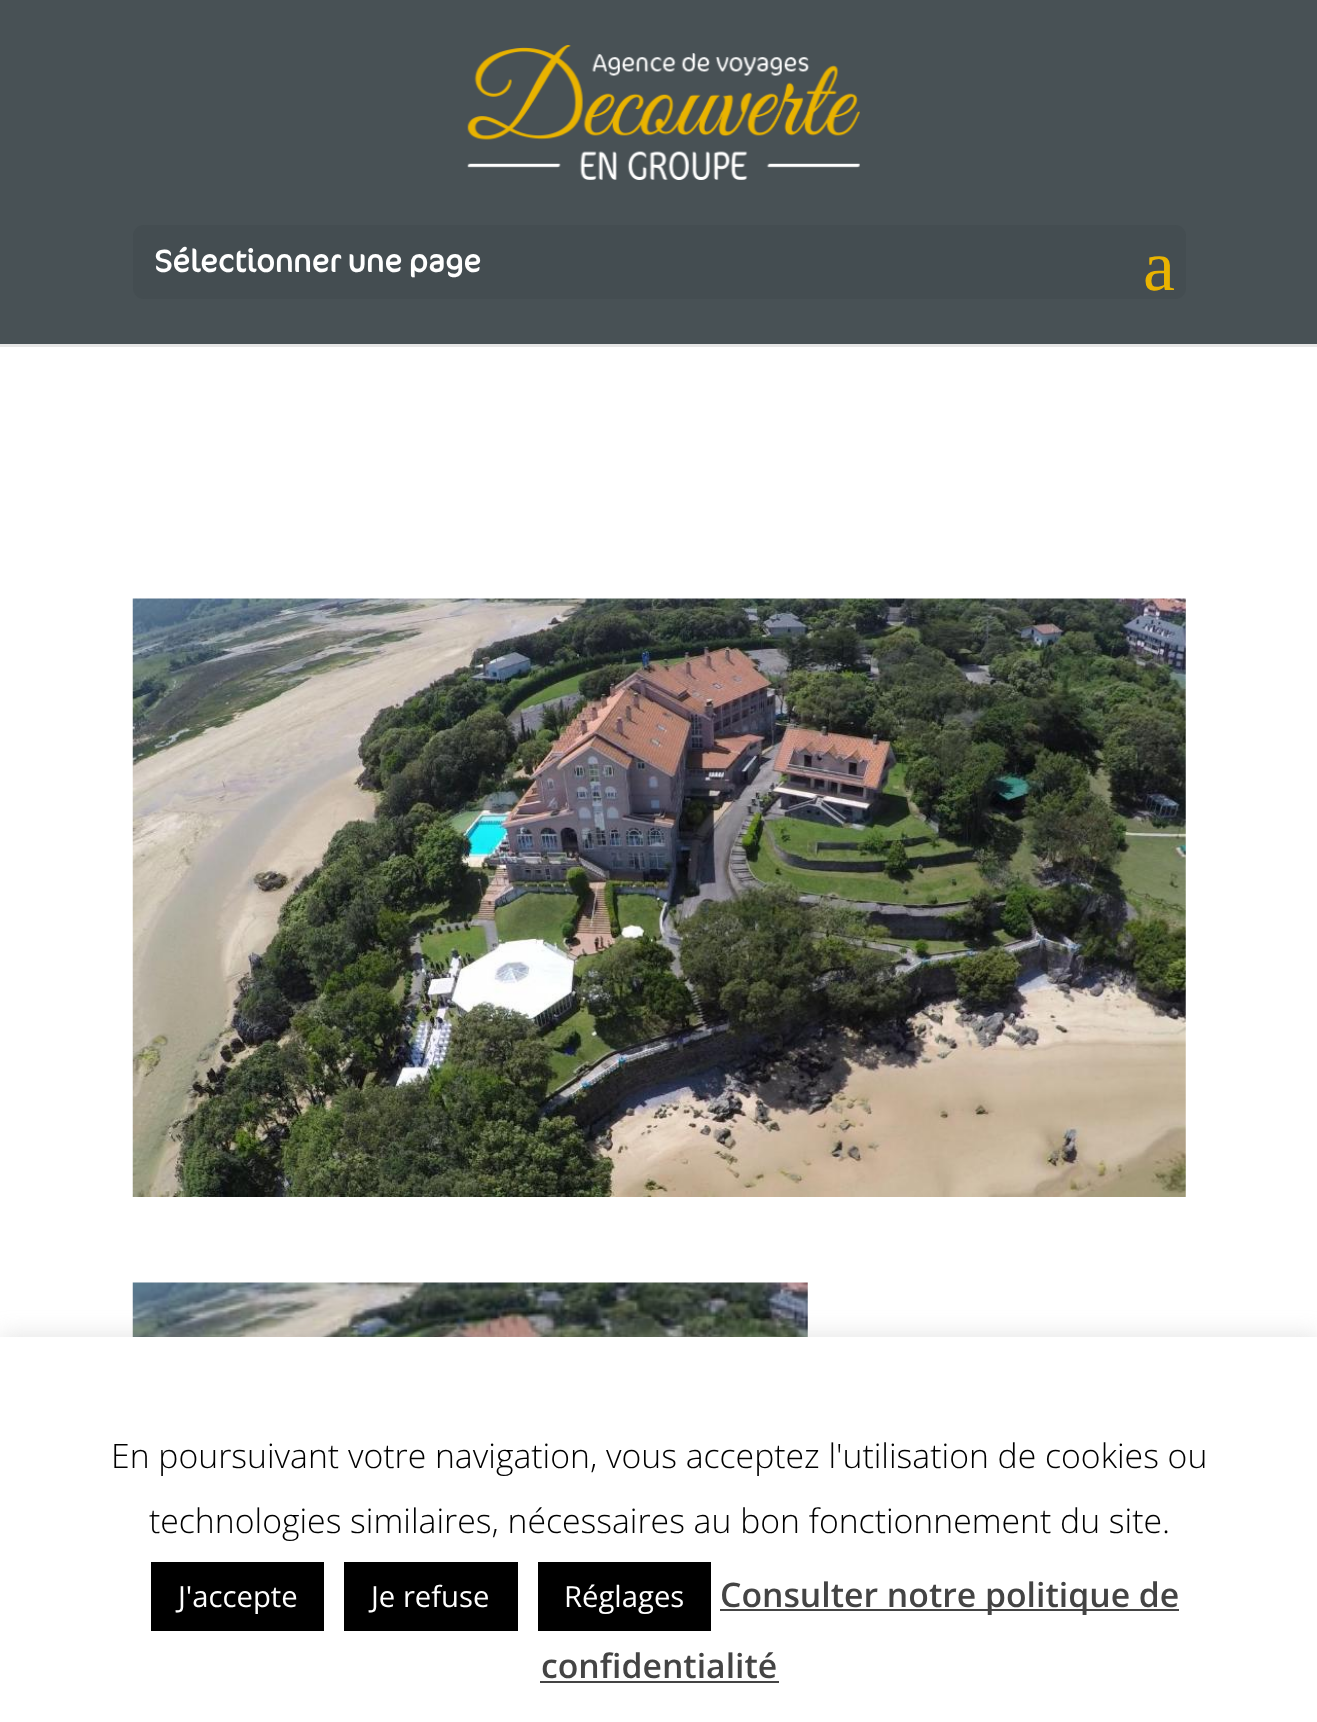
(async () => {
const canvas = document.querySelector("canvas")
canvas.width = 1317
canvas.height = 1722
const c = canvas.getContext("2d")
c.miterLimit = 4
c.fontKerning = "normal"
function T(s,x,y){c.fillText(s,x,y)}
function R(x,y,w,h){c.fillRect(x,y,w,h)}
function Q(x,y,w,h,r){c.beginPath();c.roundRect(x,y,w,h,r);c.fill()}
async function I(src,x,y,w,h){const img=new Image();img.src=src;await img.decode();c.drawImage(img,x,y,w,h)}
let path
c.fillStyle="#fff"
R(0,0,1317,1722)
c.fillStyle="#e6e6e6"
path = new Path2D("M0 344v3h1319v-345h-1v342z")
c.fill(path)
c.fillStyle="#485155"
R(0,0,1317,344)
await I("1.png",467,45,393,135)
c.fillStyle="#444d51"
Q(133,225,1053,74,11)
c.font="bold 31.5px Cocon"
c.fillStyle="#fff"
T("Sélectionner une page",154,272)
c.font="72px Liberation Serif"
c.fillStyle="#e9b300"
T("a",1143,290)
await I("2.png",132,598,1054,599)
await I("3.png",132,1282,676,55)
c.fillStyle="#acabab4d"
c.filter="blur(11px)"
c.beginPath()
c.rect(0,1334,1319,387)
c.fill()
c.filter="none"
c.fillStyle="#fff"
R(0,1337,1317,385)
c.font="300 33.75px Open Sans"
c.fillStyle="#000"
T("En poursuivant votre navigation, vous acceptez l'utilisation de cookies ou",111,1468)
T("technologies similaires, nécessaires au bon fonctionnement du site.",149,1533)
R(151,1562,173,69)
c.font="29.25px Open Sans"
c.fillStyle="#fff"
T("J'accepte",178,1607)
c.fillStyle="#000"
R(344,1562,174,69)
c.fillStyle="#fff"
T("Je refuse",371,1607)
c.fillStyle="#000"
R(538,1562,173,69)
c.fillStyle="#fff"
T("Réglages",564,1607)
c.fillStyle="#444"
R(720,1609,459,2)
c.font="600 33.75px Open Sans"
T("Consulter notre politique de",720,1607)
T("confidentialité",541,1678)
R(540,1681,239,2)
})()
